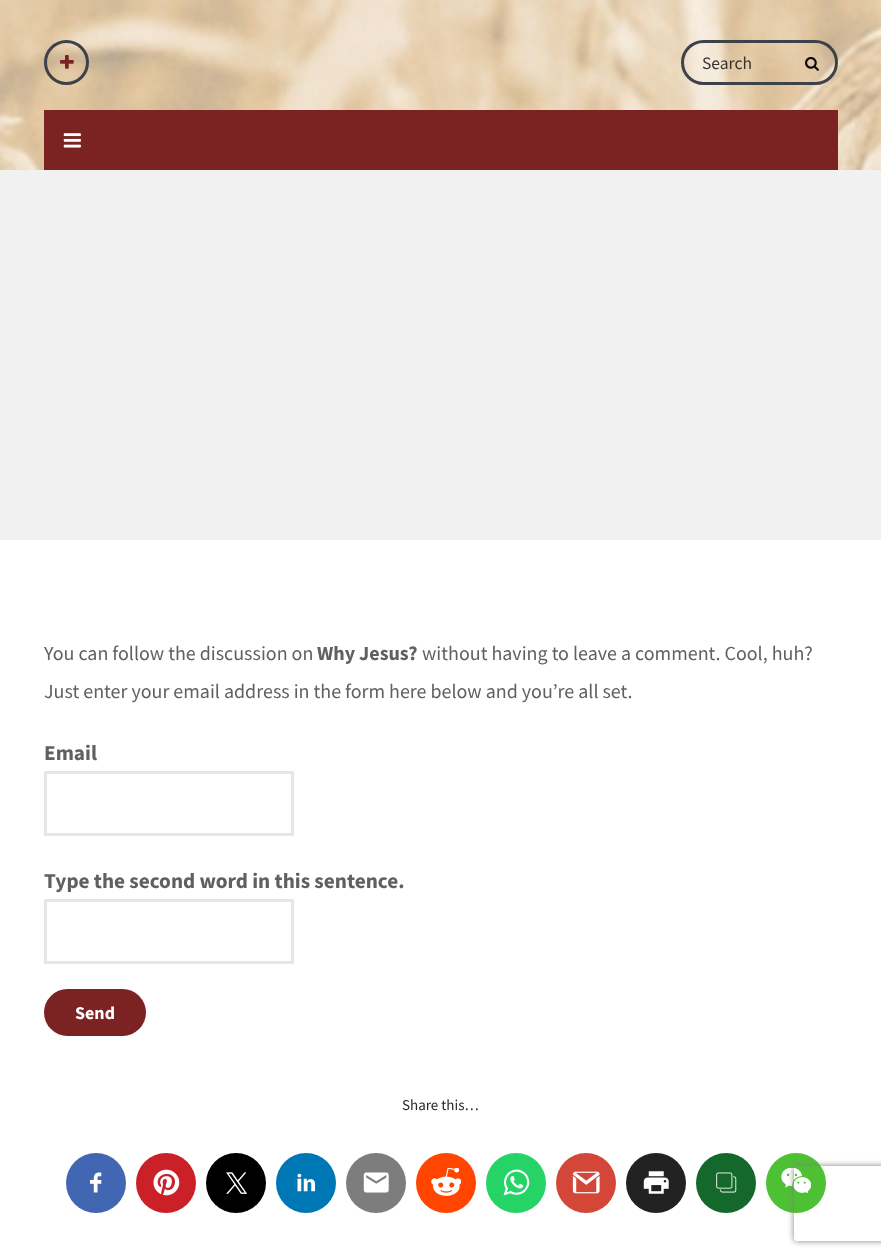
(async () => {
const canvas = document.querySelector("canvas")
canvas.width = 881
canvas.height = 1258
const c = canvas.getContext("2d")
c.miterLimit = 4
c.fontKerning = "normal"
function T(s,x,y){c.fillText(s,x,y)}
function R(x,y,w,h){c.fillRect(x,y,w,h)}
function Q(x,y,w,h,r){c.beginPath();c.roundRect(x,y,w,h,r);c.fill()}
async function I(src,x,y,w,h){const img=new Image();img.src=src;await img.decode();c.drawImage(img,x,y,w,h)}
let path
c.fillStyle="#fff"
R(0,0,881,1258)
await I("1.png",0,0,881,170)
c.beginPath()
c.arc(66.5,62.5,21,0,7)
c.strokeStyle="#3e4148"
c.lineWidth=3
c.stroke()
await I("2.png",60,55,14,14)
c.beginPath()
c.roundRect(682.5,41.5,154,42,21)
c.stroke()
c.font="17.5px Source Sans Pro"
c.fillStyle="#37322d"
T("Search",702,69)
await I("3.png",805,57,14,14)
c.fillStyle="#7b2222"
R(44,110,794,60)
await I("4.png",63,133,18,15)
c.fillStyle="#f1f1f1"
R(0,170,881,370)
c.font="20px Source Sans Pro"
c.fillStyle="#606060"
T("You can follow the discussion on",44,660)
c.font="bold 20px Source Sans Pro"
T("Why Jesus?",317,660)
c.font="20px Source Sans Pro"
T("without having to leave a comment. Cool, huh?",422,660)
T("Just enter your email address in the form here below and you’re all set.",44,698)
c.font="bold 21.25px Source Sans Pro"
T("Email",44,760)
c.strokeStyle="#e6e6e6"
c.strokeRect(45.5,772.5,247,62)
T("Type the second word in this sentence.",44,888)
c.strokeRect(45.5,900.5,247,62)
c.fillStyle="#7b2222"
Q(44,989,102,47,23.5)
c.font="bold 18px Source Sans Pro"
c.fillStyle="#fff"
T("Send",75,1019)
c.font="15px Source Sans Pro"
c.fillStyle="#272727"
T("Share this…",402,1110)
c.fillStyle="#4267b2"
c.beginPath()
c.arc(96,1183,30,0,7)
c.fill()
await I("5.png",90,1172,12,21)
c.fillStyle="#cb2027"
c.beginPath()
c.arc(166,1183,30,0,7)
c.fill()
await I("6.png",153,1169,27,27)
c.fillStyle="#000"
c.beginPath()
c.arc(236,1183,30,0,7)
c.fill()
await I("7.png",226,1172,21,22)
c.fillStyle="#0077b5"
c.beginPath()
c.arc(306,1183,30,0,7)
c.fill()
await I("8.png",297,1173,19,19)
c.fillStyle="#7d7d7d"
c.beginPath()
c.arc(376,1183,30,0,7)
c.fill()
await I("9.png",363,1172,26,21)
c.fillStyle="#ff4500"
c.beginPath()
c.arc(446,1183,30,0,7)
c.fill()
await I("10.png",431,1168,30,28)
c.fillStyle="#25d366"
c.beginPath()
c.arc(516,1183,30,0,7)
c.fill()
await I("11.png",503,1169,27,27)
c.fillStyle="#d44638"
c.beginPath()
c.arc(586,1183,30,0,7)
c.fill()
await I("12.png",572,1171,28,23)
c.fillStyle="#222"
c.beginPath()
c.arc(656,1183,30,0,7)
c.fill()
await I("13.png",643,1171,26,23)
c.fillStyle="#14682b"
c.beginPath()
c.arc(726,1183,30,0,7)
c.fill()
await I("14.png",716,1172,21,21)
c.fillStyle="#4ec034"
c.beginPath()
c.arc(796,1183,30,0,7)
c.fill()
await I("15.png",781,1168,30,26)
c.save()
path = new Path2D("M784 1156h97v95h-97zm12.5 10h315c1.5 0 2.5 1 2.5 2.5v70c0 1.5-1 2.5-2.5 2.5h-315c-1.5 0-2.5-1-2.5-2.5v-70c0-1.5 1-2.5 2.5-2.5z")
c.clip(path,"evenodd")
c.fillStyle="#808080"
c.filter="blur(3px)"
c.beginPath()
c.roundRect(794,1166,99,75,2.5)
c.fill()
c.filter="none"
c.restore()
})()
